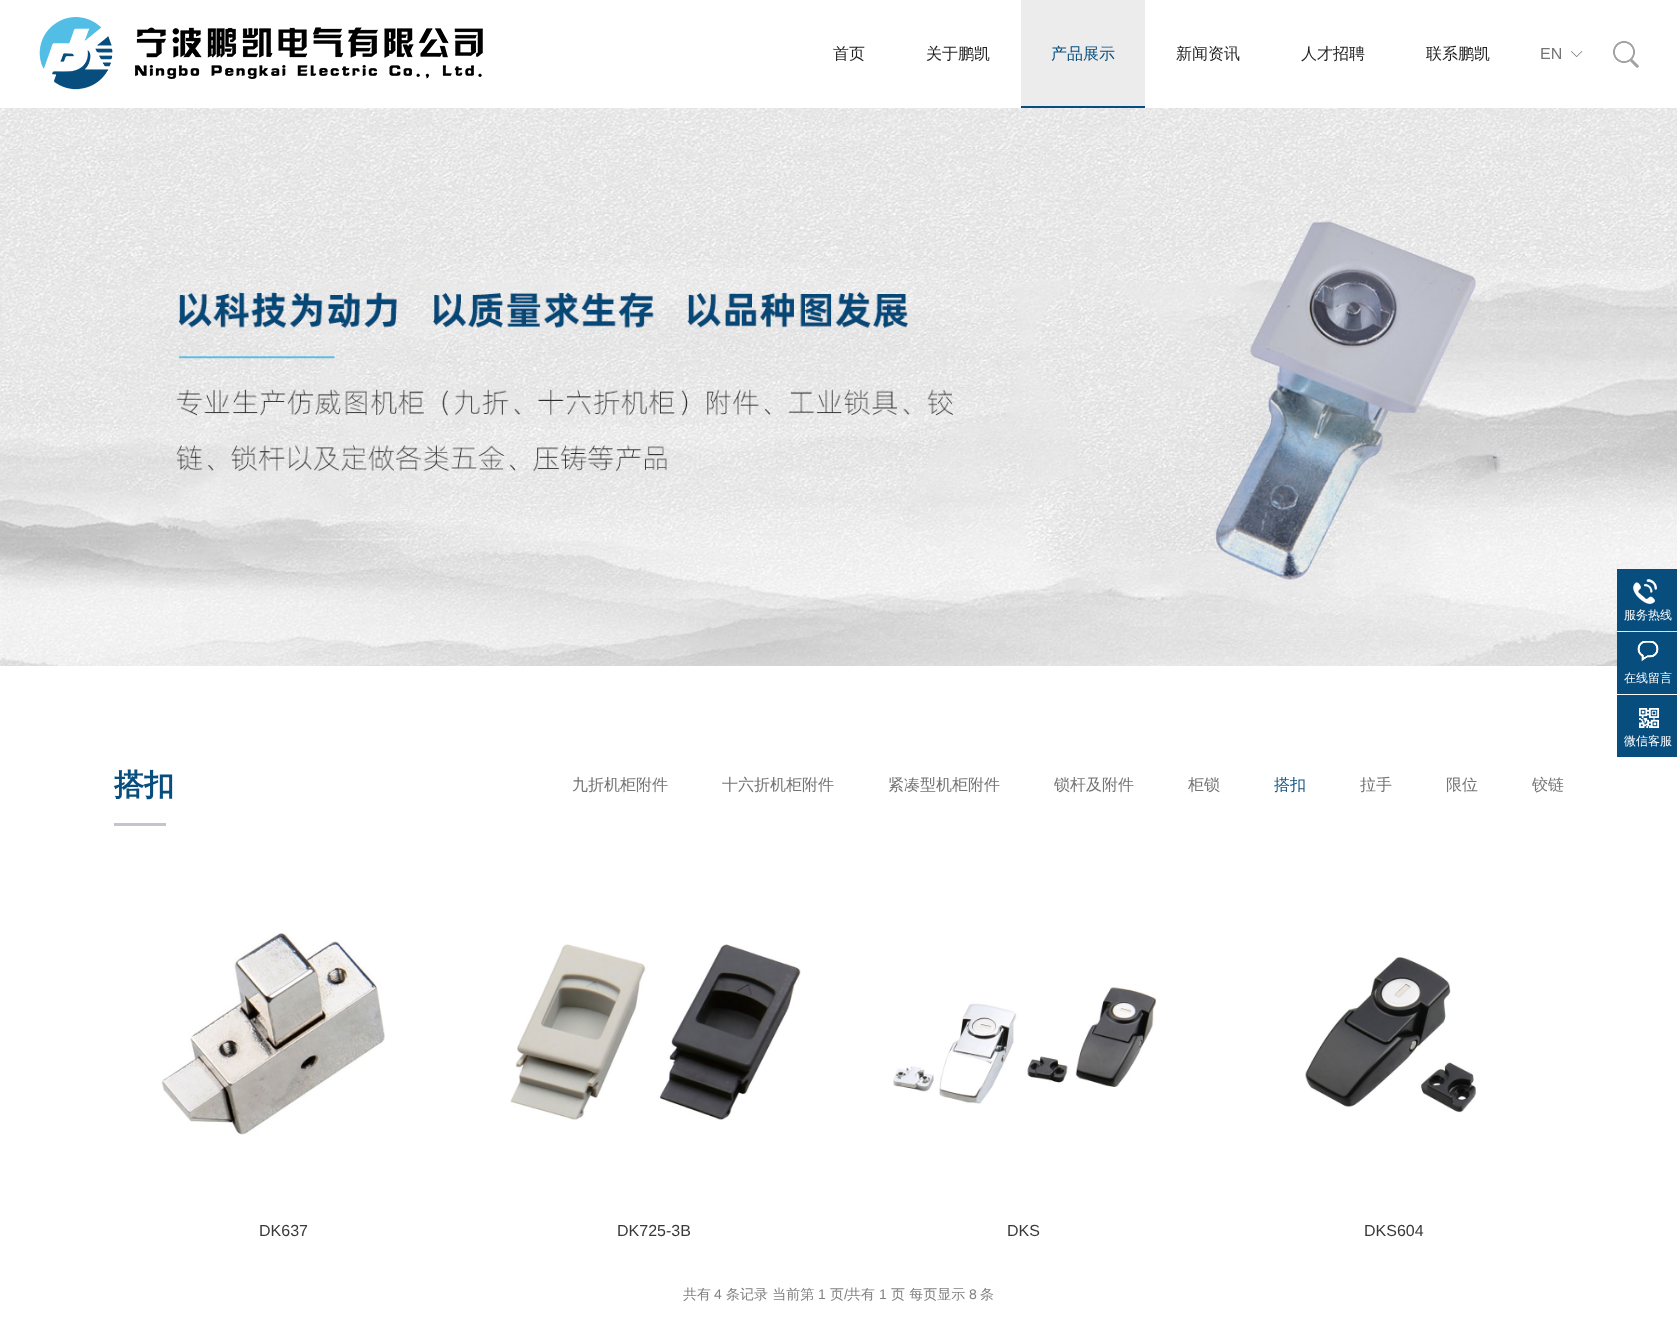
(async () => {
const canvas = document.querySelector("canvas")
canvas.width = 1677
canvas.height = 1324
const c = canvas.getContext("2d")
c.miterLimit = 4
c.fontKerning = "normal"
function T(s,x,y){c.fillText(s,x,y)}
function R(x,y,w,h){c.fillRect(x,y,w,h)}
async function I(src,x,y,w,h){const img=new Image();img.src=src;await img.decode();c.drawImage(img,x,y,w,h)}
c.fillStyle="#fff"
R(0,0,1677,1324)
await I("1.png",39,17,444,73)
c.font="500 16px WenQuanYi Zen Hei"
c.fillStyle="#201f1f"
T("首页",833,59)
T("关于鹏凯",926,59)
await I("2.png",1021,0,124,108)
c.fillStyle="#074d7e"
T("产品展示",1051,59)
c.fillStyle="#201f1f"
T("新闻资讯",1176,59)
T("人才招聘",1301,59)
T("联系鹏凯",1426,59)
await I("3.png",1571,51,12,6)
c.font="16px Liberation Sans"
c.fillStyle="#747474"
T("EN",1540,59)
await I("4.png",1613,41,26,27)
await I("5.png",0,108,1677,558)
c.fillStyle="#074d7e"
R(1617,569,60,62)
await I("6.png",1633,579,24,25)
c.font="500 12px WenQuanYi Zen Hei"
c.fillStyle="#fff"
T("服务热线",1624,619)
c.fillStyle="#074d7e"
R(1617,632,60,62)
await I("7.png",1637,641,22,21)
c.fillStyle="#fff"
T("在线留言",1624,682)
c.fillStyle="#074d7e"
R(1617,695,60,62)
await I("8.png",1639,708,20,20)
c.fillStyle="#fff"
T("微信客服",1624,745)
c.font="bold 30px WenQuanYi Zen Hei"
c.fillStyle="#074d7e"
T("搭扣",114,795)
c.fillStyle="#c2c5cc"
R(114,823,52,3)
c.font="500 16px WenQuanYi Zen Hei"
c.fillStyle="#747474"
T("九折机柜附件",572,790)
T("十六折机柜附件",722,790)
T("紧凑型机柜附件",888,790)
T("锁杆及附件",1054,790)
T("柜锁",1188,790)
c.fillStyle="#145684"
T("搭扣",1274,790)
c.fillStyle="#747474"
T("拉手",1360,790)
T("限位",1446,790)
T("铰链",1532,790)
await I("9.png",161,932,224,203)
c.font="16px Liberation Sans"
c.fillStyle="#393939"
T("DK637",259,1236)
await I("10.png",510,944,291,177)
T("DK725-3B",617,1236)
await I("11.png",893,986,266,118)
T("DKS",1007,1236)
await I("12.png",1305,957,172,156)
T("DKS604",1364,1236)
c.font="500 14px WenQuanYi Zen Hei"
c.fillStyle="#818181"
T("共有",683,1299)
c.font="14px Liberation Sans"
T("4",714,1299)
c.font="500 14px WenQuanYi Zen Hei"
T("条记录 当前第",726,1299)
c.font="14px Liberation Sans"
T("1",818,1299)
c.font="500 14px WenQuanYi Zen Hei"
T("页",830,1299)
c.font="14px Liberation Sans"
T("/",844,1299)
c.font="500 14px WenQuanYi Zen Hei"
T("共有",847,1299)
c.font="14px Liberation Sans"
T("1",879,1299)
c.font="500 14px WenQuanYi Zen Hei"
T("页 每页显示",891,1299)
c.font="14px Liberation Sans"
T("8",969,1299)
c.font="500 14px WenQuanYi Zen Hei"
T("条",980,1299)
})()
